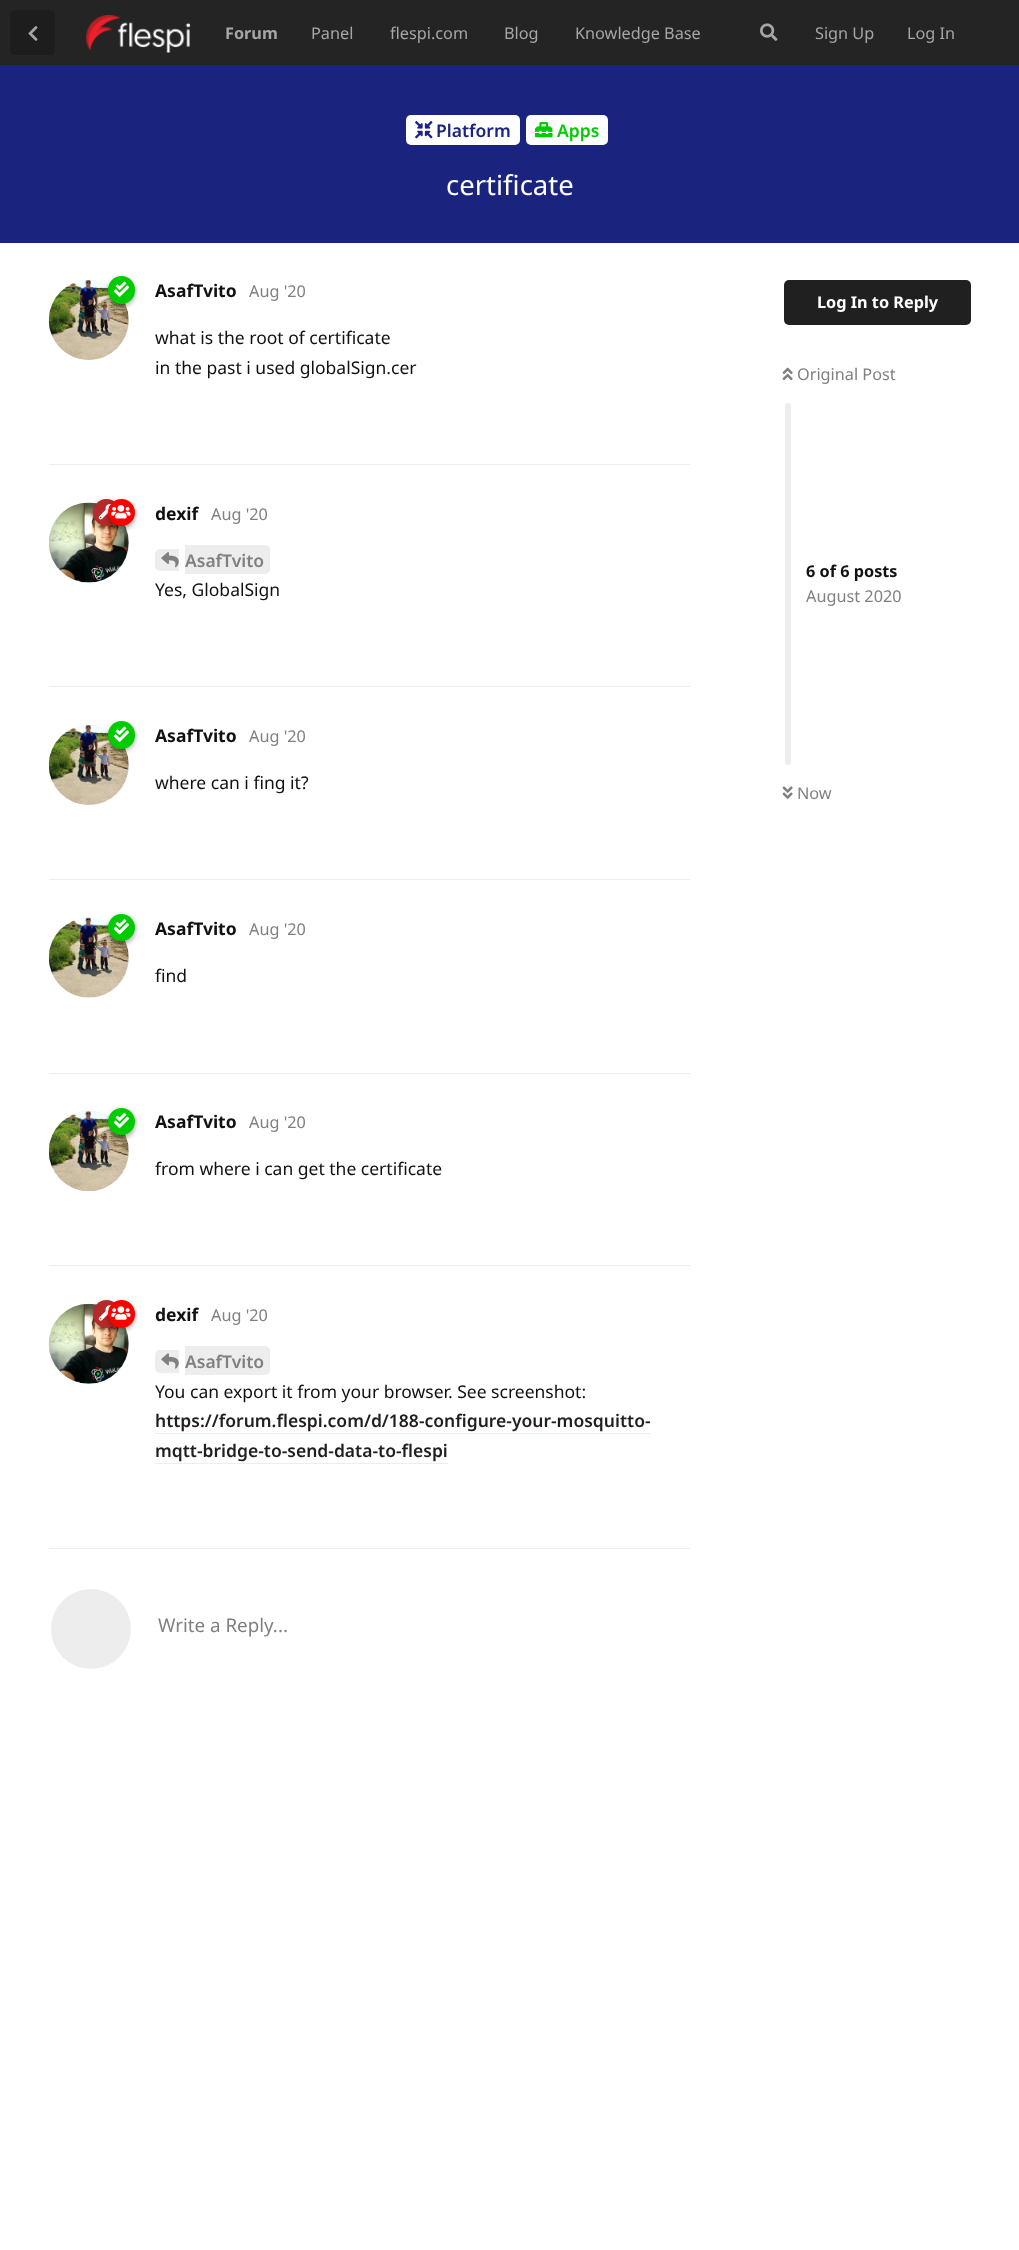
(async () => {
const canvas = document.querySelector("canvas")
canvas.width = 1019
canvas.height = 2250
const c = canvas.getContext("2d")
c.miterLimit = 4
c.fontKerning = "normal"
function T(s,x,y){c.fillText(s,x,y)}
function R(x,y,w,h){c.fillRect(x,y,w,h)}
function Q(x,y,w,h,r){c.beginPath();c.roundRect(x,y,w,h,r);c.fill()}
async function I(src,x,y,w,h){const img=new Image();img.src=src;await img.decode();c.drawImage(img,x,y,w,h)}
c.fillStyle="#fff"
R(0,0,1019,2250)
c.fillStyle="#242424"
R(0,0,1019,65)
c.fillStyle="#1d1d1d"
Q(10,10,45,45,5)
await I("1.png",28,26,10,15)
await I("2.png",86,15,104,38)
c.font="bold 16.25px Noto Sans"
c.fillStyle="#a6a6a6"
T("Forum",225,39)
c.font="16.25px Noto Sans"
T("Panel",311,39)
T("flespi.com",390,39)
T("Blog",504,39)
T("Knowledge Base",575,39)
await I("3.png",760,23,18,18)
T("Sign Up",815,39)
T("Log In",907,39)
c.fillStyle="#1a237e"
R(0,65,1019,178)
c.fillStyle="#fff"
Q(406,115,114,30,5)
await I("4.png",415,121,18,18)
c.font="600 17.5px Noto Sans"
c.fillStyle="#1a237e"
T("Platform",436,137)
c.fillStyle="#fff"
Q(526,115,82,30,5)
await I("5.png",535,122,18,16)
c.fillStyle="#0c0"
T("Apps",557,137)
c.font="27.5px Noto Sans"
c.fillStyle="#fff"
T("certificate",446,195)
c.fillStyle="#ededed"
R(49,464,641,1)
c.beginPath()
c.arc(89,320,40,0,7)
c.fill()
await I("7.png",48,280,81,80)
c.fillStyle="#00000059"
c.filter="blur(2.5px)"
c.beginPath()
c.roundRect(108,279,27,27,13.5)
c.fill()
c.filter="none"
c.fillStyle="#0c0"
Q(108,276,27,28,13.5)
await I("6.png",113,281,17,16)
c.font="bold 17.5px Noto Sans"
c.fillStyle="#111"
T("AsafTvito",155,297)
c.font="16.25px Noto Sans"
c.fillStyle="#808080"
T("Aug '20",249,297)
c.font="17.5px Noto Sans"
c.fillStyle="#111"
T("what is the root of certificate",155,344)
T("in the past i used globalSign.cer",155,374)
c.fillStyle="#ededed"
R(49,686,641,1)
c.beginPath()
c.arc(89,543,40,0,7)
c.fill()
await I("10.png",48,502,81,81)
c.fillStyle="#00000059"
c.filter="blur(2.5px)"
c.beginPath()
c.roundRect(93,501,27,28,13.5)
c.fill()
c.filter="none"
c.fillStyle="#b72a2a"
c.beginPath()
c.arc(106.5,512.5,13.5,0,7)
c.fill()
await I("8.png",98,504,13,16)
c.fillStyle="#00000059"
c.filter="blur(2.5px)"
c.beginPath()
c.roundRect(108,501,27,28,13.5)
c.fill()
c.filter="none"
c.fillStyle="#f00"
c.beginPath()
c.arc(121.5,512.5,13.5,0,7)
c.fill()
await I("9.png",111,505,20,14)
c.font="bold 17.5px Noto Sans"
c.fillStyle="#111"
T("dexif",155,520)
c.font="16.25px Noto Sans"
c.fillStyle="#808080"
T("Aug '20",211,520)
c.fillStyle="#ededed"
c.beginPath()
c.roundRect(155,549,24,22,[5,0,0,5])
c.fill()
c.beginPath()
c.roundRect(185,545,85,29,[0,5,5,0])
c.fill()
await I("11.png",161,552,18,16)
c.font="600 17.5px Noto Sans"
c.fillStyle="#808080"
T("AsafTvito",185,567)
c.font="17.5px Noto Sans"
c.fillStyle="#111"
T("Yes, GlobalSign",155,596)
c.fillStyle="#ededed"
R(49,879,641,1)
c.beginPath()
c.arc(89,765,40,0,7)
c.fill()
await I("12.png",48,725,81,80)
c.fillStyle="#00000059"
c.filter="blur(2.5px)"
c.beginPath()
c.roundRect(108,724,27,27,13.5)
c.fill()
c.filter="none"
c.fillStyle="#0c0"
Q(108,721,27,28,13.5)
await I("6.png",113,726,17,16)
c.font="bold 17.5px Noto Sans"
c.fillStyle="#111"
T("AsafTvito",155,742)
c.font="16.25px Noto Sans"
c.fillStyle="#808080"
T("Aug '20",249,742)
c.font="17.5px Noto Sans"
c.fillStyle="#111"
T("where can i fing it?",155,789)
c.fillStyle="#ededed"
R(49,1073,641,1)
c.beginPath()
c.arc(89,958,40,0,7)
c.fill()
await I("14.png",48,917,81,81)
c.fillStyle="#00000059"
c.filter="blur(2.5px)"
c.beginPath()
c.roundRect(108,916,27,28,13.5)
c.fill()
c.filter="none"
c.fillStyle="#0c0"
c.beginPath()
c.arc(121.5,927.5,13.5,0,7)
c.fill()
await I("13.png",113,919,17,16)
c.font="bold 17.5px Noto Sans"
c.fillStyle="#111"
T("AsafTvito",155,935)
c.font="16.25px Noto Sans"
c.fillStyle="#808080"
T("Aug '20",249,935)
c.font="17.5px Noto Sans"
c.fillStyle="#111"
T("find",155,982)
c.fillStyle="#ededed"
R(49,1265,641,1)
c.beginPath()
c.arc(89,1151,40,0,7)
c.fill()
await I("16.png",48,1111,81,81)
c.fillStyle="#00000059"
c.filter="blur(2.5px)"
c.beginPath()
c.roundRect(108,1110,27,28,13.5)
c.fill()
c.filter="none"
c.fillStyle="#0c0"
c.beginPath()
c.arc(121.5,1121.5,13.5,0,7)
c.fill()
await I("15.png",113,1112,17,17)
c.font="bold 17.5px Noto Sans"
c.fillStyle="#111"
T("AsafTvito",155,1128)
c.font="16.25px Noto Sans"
c.fillStyle="#808080"
T("Aug '20",249,1128)
c.font="17.5px Noto Sans"
c.fillStyle="#111"
T("from where i can get the certificate",155,1175)
c.fillStyle="#ededed"
R(49,1548,641,1)
c.beginPath()
c.arc(89,1344,40,0,7)
c.fill()
await I("19.png",48,1303,81,81)
c.fillStyle="#00000059"
c.filter="blur(2.5px)"
c.beginPath()
c.roundRect(93,1303,27,27,13.5)
c.fill()
c.filter="none"
c.fillStyle="#b72a2a"
Q(93,1300,27,28,13.5)
await I("17.png",98,1305,13,16)
c.fillStyle="#00000059"
c.filter="blur(2.5px)"
c.beginPath()
c.roundRect(108,1303,27,27,13.5)
c.fill()
c.filter="none"
c.fillStyle="#f00"
Q(108,1300,27,28,13.5)
await I("18.png",111,1306,20,14)
c.font="bold 17.5px Noto Sans"
c.fillStyle="#111"
T("dexif",155,1321)
c.font="16.25px Noto Sans"
c.fillStyle="#808080"
T("Aug '20",211,1321)
c.fillStyle="#ededed"
c.beginPath()
c.roundRect(155,1350,24,23,[5,0,0,5])
c.fill()
c.beginPath()
c.roundRect(185,1346,85,29,[0,5,5,0])
c.fill()
await I("20.png",161,1353,18,16)
c.font="600 17.5px Noto Sans"
c.fillStyle="#808080"
T("AsafTvito",185,1368)
c.font="17.5px Noto Sans"
c.fillStyle="#111"
T("You can export it from your browser. See screenshot:",155,1398)
c.font="600 17.5px Noto Sans"
c.fillStyle="#231d1d"
T("https://forum.flespi.com/d/188-configure-your-mosquitto-",155,1427)
c.fillStyle="#ededed"
R(155,1433,495,1)
c.fillStyle="#231d1d"
T("mqtt-bridge-to-send-data-to-flespi",155,1457)
c.fillStyle="#ededed"
R(155,1463,293,1)
c.beginPath()
c.arc(91,1629,40,0,7)
c.fill()
c.font="18.75px Noto Sans"
c.fillStyle="#808080"
T("Write a Reply...",158,1632)
c.fillStyle="#202020"
Q(784,280,187,45,5)
c.font="bold 16.25px Noto Sans"
c.fillStyle="#fff"
T("Log In to Reply",817,308)
await I("21.png",782,367,11,14)
c.font="16.25px Noto Sans"
c.fillStyle="#808080"
T("Original Post",797,380)
c.fillStyle="#ededed"
Q(785,403,6,362,3)
c.font="bold 16.25px Noto Sans"
c.fillStyle="#111"
T("6 of 6 posts",806,577)
c.font="16.25px Noto Sans"
c.fillStyle="#808080"
T("August 2020",806,602)
await I("22.png",782,786,11,13)
T("Now",797,799)
})()
